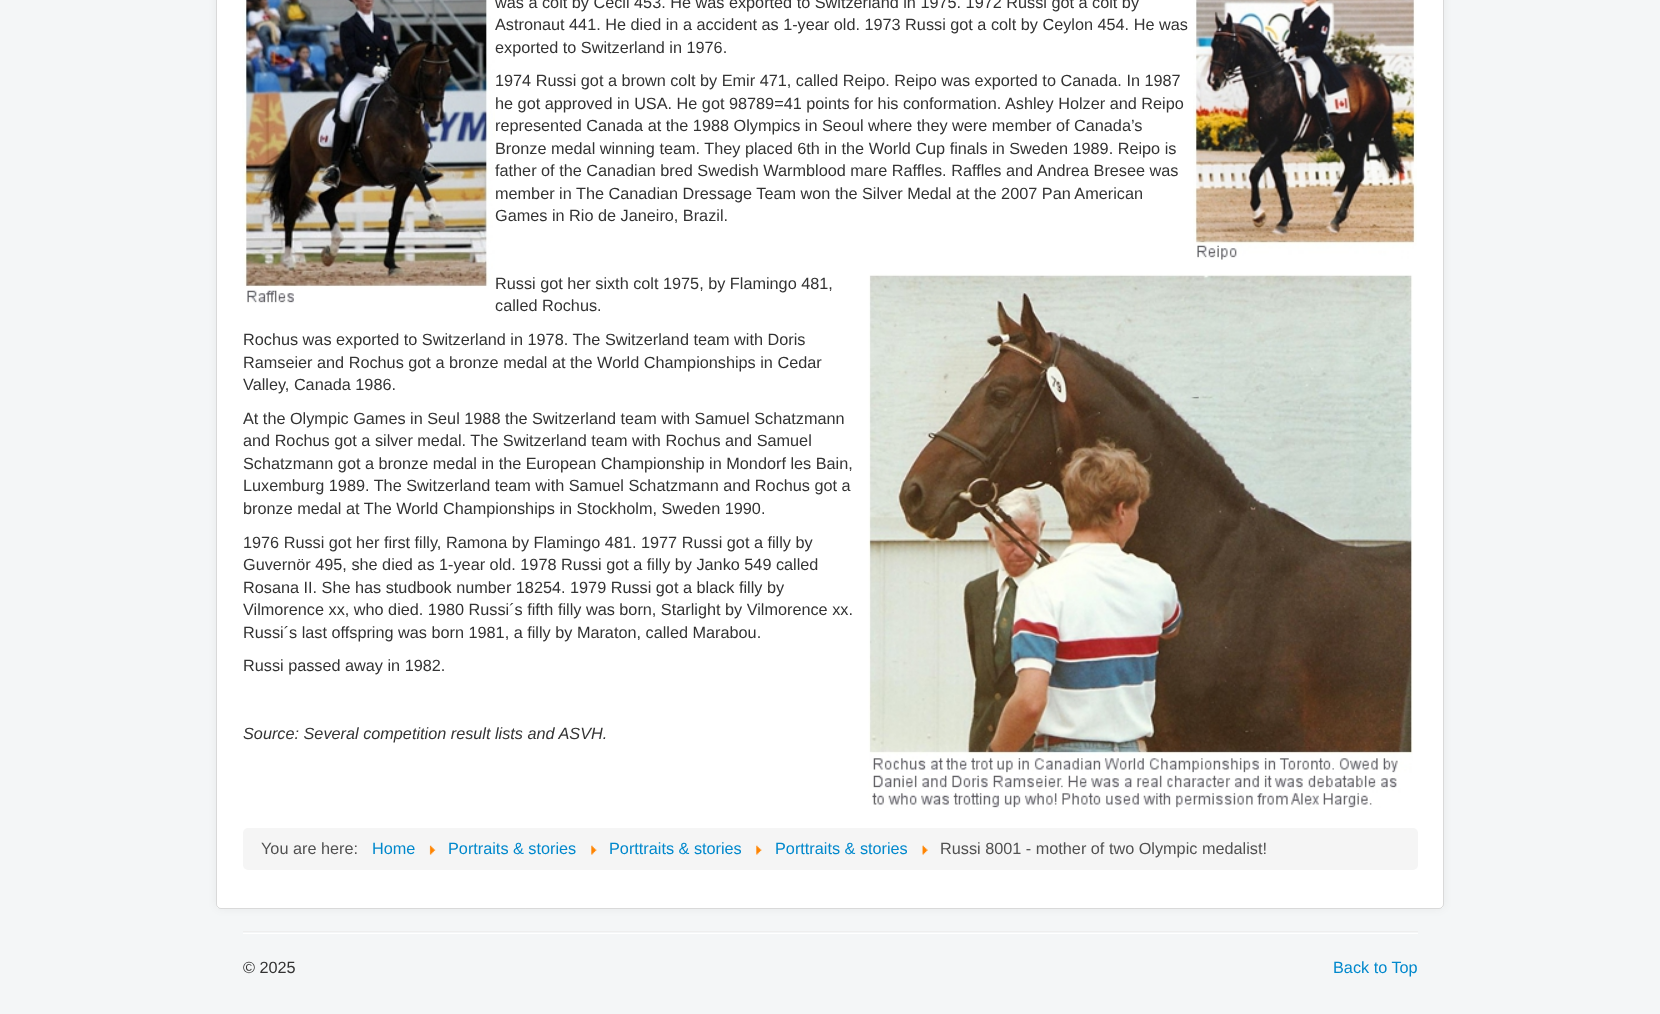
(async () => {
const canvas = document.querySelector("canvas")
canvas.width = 1660
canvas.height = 1014
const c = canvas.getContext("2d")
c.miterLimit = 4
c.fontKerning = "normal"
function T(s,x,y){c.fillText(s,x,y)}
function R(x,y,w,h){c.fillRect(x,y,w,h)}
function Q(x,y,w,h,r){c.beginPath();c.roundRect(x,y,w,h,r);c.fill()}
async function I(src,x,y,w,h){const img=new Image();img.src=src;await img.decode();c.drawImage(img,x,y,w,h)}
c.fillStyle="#f4f6f7"
R(0,0,1660,1014)
c.fillStyle="#0000000d"
c.filter="blur(4px)"
c.beginPath()
c.roundRect(216,-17,1228,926,5)
c.fill()
c.filter="none"
c.fillStyle="#fff"
Q(216,-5,1228,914,5)
c.beginPath()
c.roundRect(216.5,-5.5,1227,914,4.5)
c.strokeStyle="#00000026"
c.stroke()
await I("1.png",242,0,253,303)
c.font="16.25px Liberation Sans"
c.fillStyle="#333"
T("was a colt by Cecil 453. He was exported to Switzerland in 1975. 1972 Russi got a colt by",495,8)
await I("2.png",1193,0,224,260)
T("Astronaut 441. He died in a accident as 1-year old. 1973 Russi got a colt by Ceylon 454. He was",495,30)
T("exported to Switzerland in 1976.",495,53)
T("1974 Russi got a brown colt by Emir 471, called Reipo. Reipo was exported to Canada. In 1987",495,86)
T("he got approved in USA. He got 98789=41 points for his conformation. Ashley Holzer and Reipo",495,109)
T("represented Canada at the 1988 Olympics in Seoul where they were member of Canada’s",495,131)
T("Bronze medal winning team. They placed 6th in the World Cup finals in Sweden 1989. Reipo is",495,154)
T("father of the Canadian bred Swedish Warmblood mare Raffles. Raffles and Andrea Bresee was",495,176)
T("member in The Canadian Dressage Team won the Silver Medal at the 2007 Pan American",495,199)
T("Games in Rio de Janeiro, Brazil.",495,221)
T("Russi got her sixth colt 1975, by Flamingo 481,",495,289)
T("called Rochus.",495,311)
await I("3.png",868,274,545,534)
T("Rochus was exported to Switzerland in 1978. The Switzerland team with Doris",243,345)
T("Ramseier and Rochus got a bronze medal at the World Championships in Cedar",243,368)
T("Valley, Canada 1986.",243,390)
T("At the Olympic Games in Seul 1988 the Switzerland team with Samuel Schatzmann",243,424)
T("and Rochus got a silver medal. The Switzerland team with Rochus and Samuel",243,446)
T("Schatzmann got a bronze medal in the European Championship in Mondorf les Bain,",243,469)
T("Luxemburg 1989. The Switzerland team with Samuel Schatzmann and Rochus got a",243,491)
T("bronze medal at The World Championships in Stockholm, Sweden 1990.",243,514)
T("1976 Russi got her first filly, Ramona by Flamingo 481. 1977 Russi got a filly by",243,548)
T("Guvernör 495, she died as 1-year old. 1978 Russi got a filly by Janko 549 called",243,570)
T("Rosana II. She has studbook number 18254. 1979 Russi got a black filly by",243,593)
T("Vilmorence xx, who died. 1980 Russi´s fifth filly was born, Starlight by Vilmorence xx.",243,615)
T("Russi´s last offspring was born 1981, a filly by Maraton, called Marabou.",243,638)
T("Russi passed away in 1982.",243,671)
c.font="italic 16.25px Liberation Sans"
T("Source: Several competition result lists and ASVH.",243,739)
c.fillStyle="#f5f5f5"
Q(243,828,1175,42,5)
c.font="16.25px Liberation Sans"
c.fillStyle="#515151"
T("You are here:",261,854)
c.fillStyle="#08c"
T("Home",372,854)
await I("4.png",429,845,7,10)
T("Portraits & stories",448,854)
await I("5.png",591,845,6,10)
T("Porttraits & stories",609,854)
await I("6.png",756,845,6,10)
T("Porttraits & stories",775,854)
await I("7.png",922,845,6,10)
c.fillStyle="#515151"
T("Russi 8001 - mother of two Olympic medalist!",940,854)
c.fillStyle="#eee"
R(243,931,1175,1)
c.fillStyle="#fff"
R(243,933,1175,1)
c.fillStyle="#333"
T("© 2025",243,973)
c.fillStyle="#08c"
T("Back to Top",1333,973)
})()
